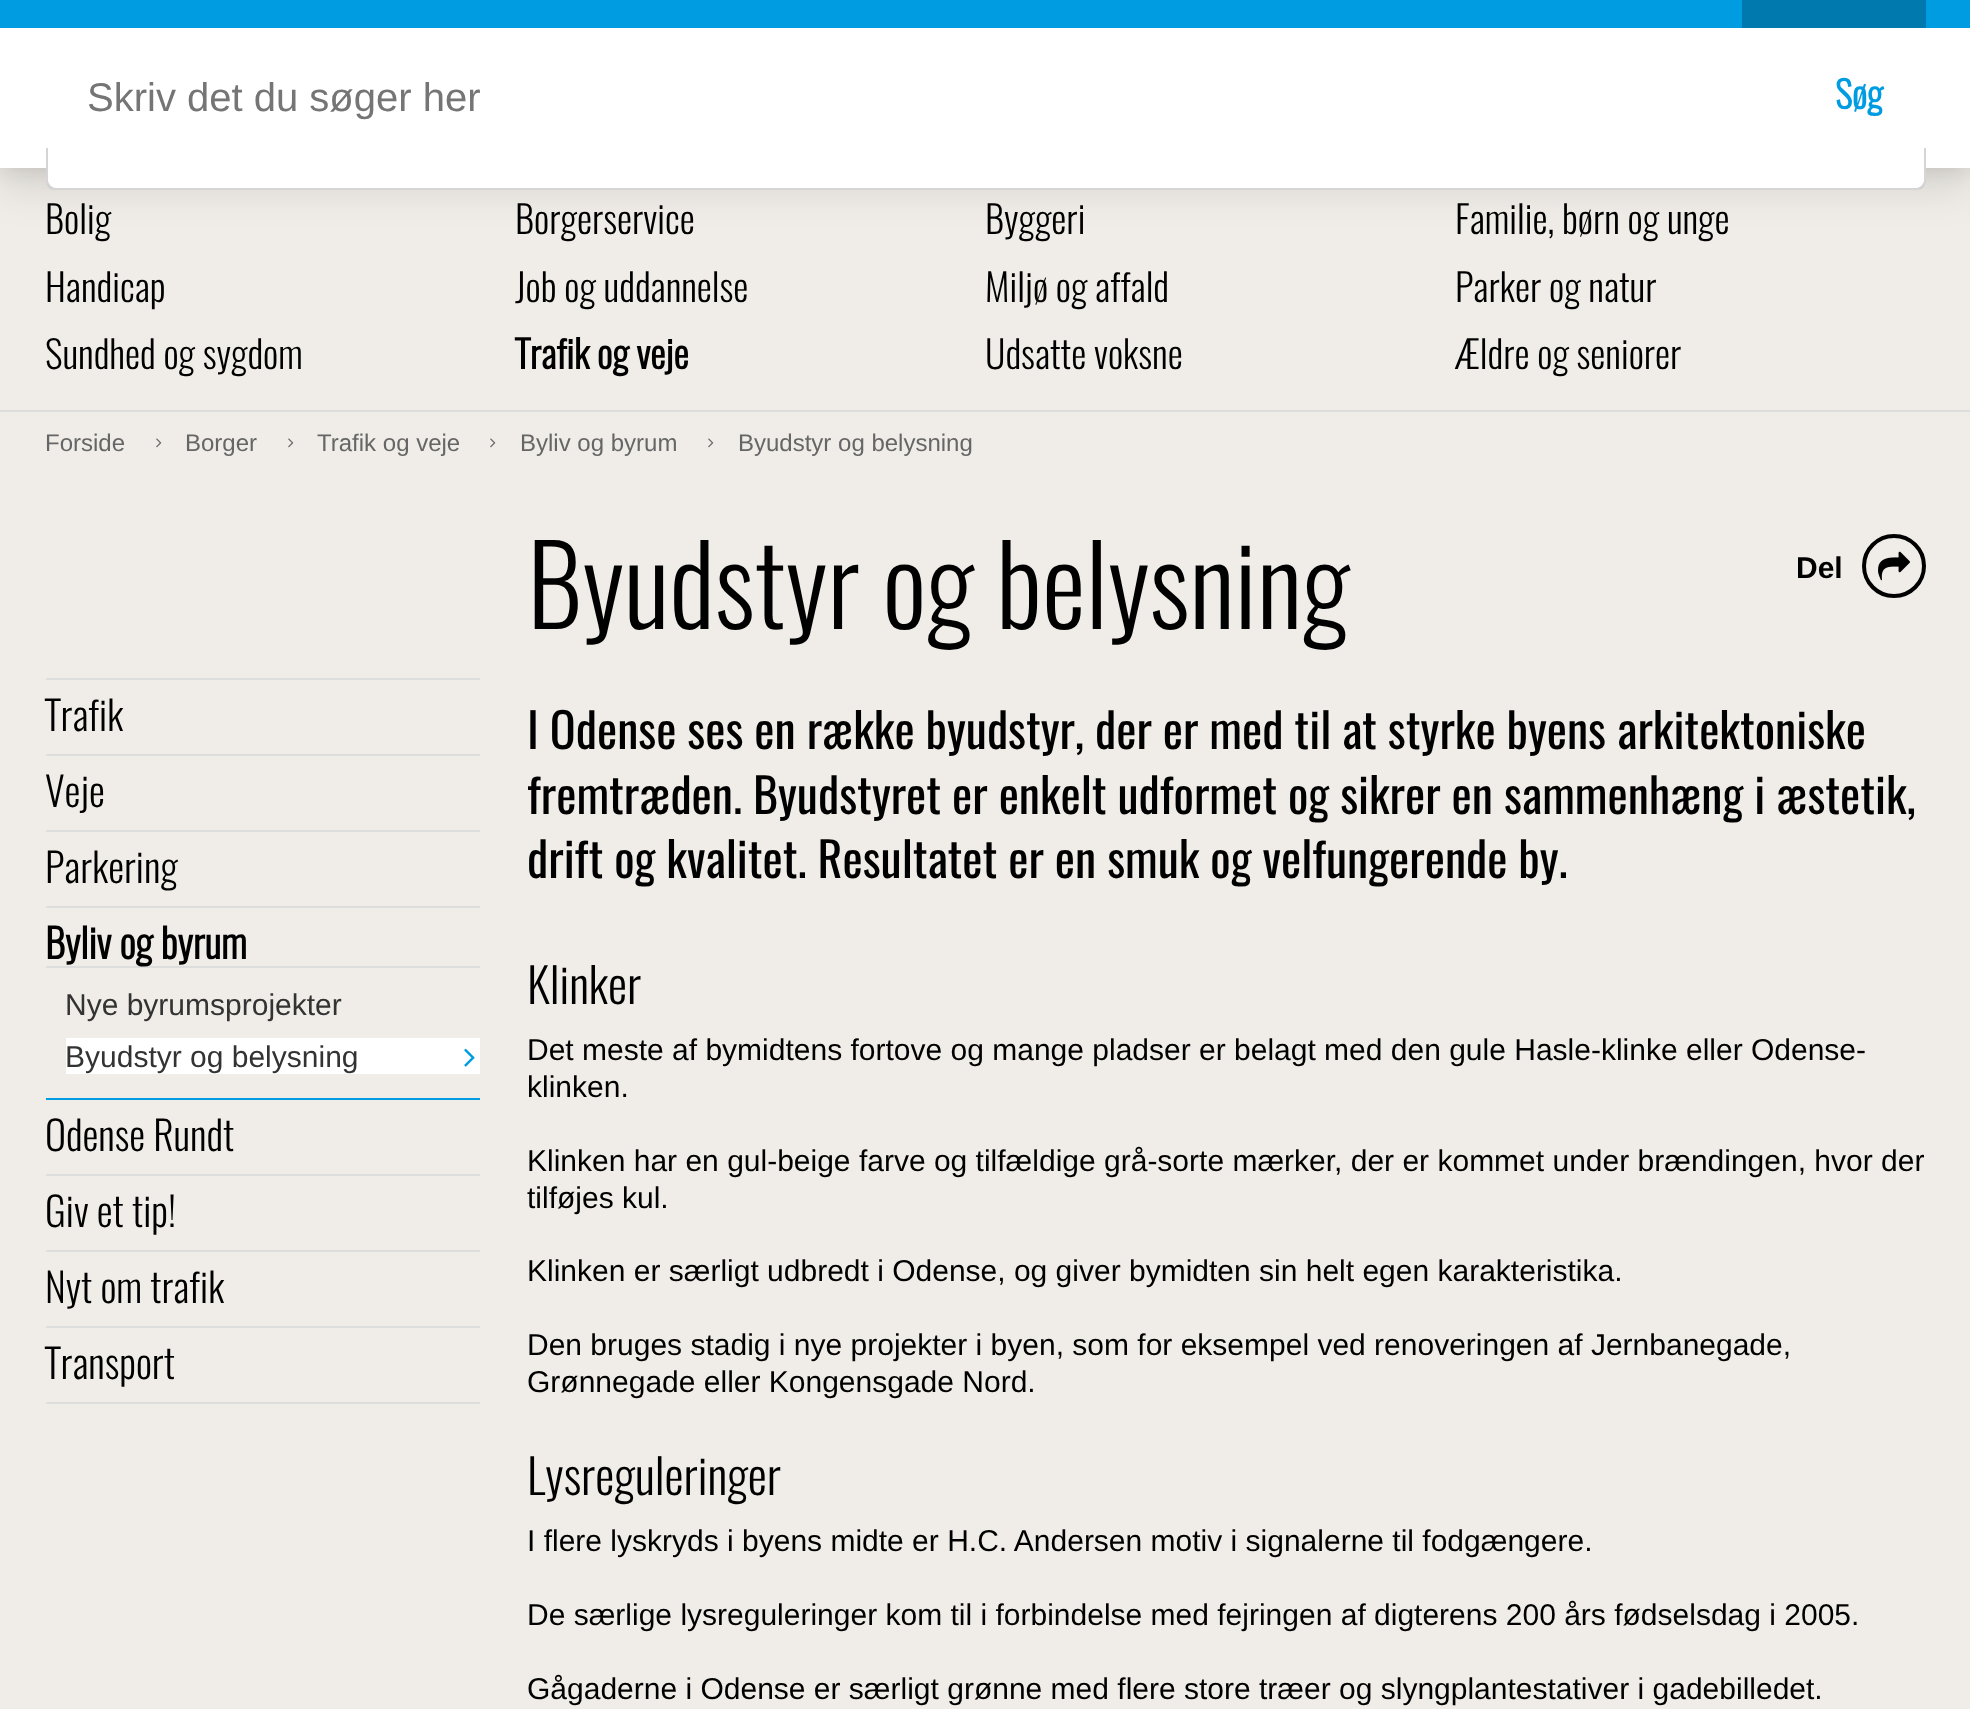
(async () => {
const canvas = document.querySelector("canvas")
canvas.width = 1970
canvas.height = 1709
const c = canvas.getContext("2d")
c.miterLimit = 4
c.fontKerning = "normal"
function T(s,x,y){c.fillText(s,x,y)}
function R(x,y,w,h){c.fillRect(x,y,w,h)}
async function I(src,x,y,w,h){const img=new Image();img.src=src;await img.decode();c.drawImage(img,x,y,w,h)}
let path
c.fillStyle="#f0ede8"
R(0,0,1970,1709)
c.fillStyle="#0000001a"
c.filter="blur(20px)"
c.beginPath()
c.rect(0,-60,1970,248)
c.fill()
c.filter="none"
c.filter="blur(10px)"
c.beginPath()
c.rect(0,30,1970,140)
c.fill()
c.filter="none"
c.fillStyle="#fff"
R(0,28,1970,140)
c.fillStyle="#009ce2"
R(0,0,1970,28)
c.fillStyle="#0079af"
R(1742,0,184,28)
c.font="40px Liberation Sans"
c.fillStyle="#757575"
T("Skriv det du søger her",87,111)
c.font="bold 37px Oswald"
c.fillStyle="#009ce2"
T("Søg",1835,109)
c.fillStyle="#fff"
c.beginPath()
c.roundRect(46,148,1880,42,[0,0,10,10])
c.fill()
c.fillStyle="#80808054"
path = new Path2D("M46 148h1880v32c0 6-4 10-10 10h-1860c-6 0-10-4-10-10zm2 0h1876v32c0 4-4 8-8 8h-1860c-4 0-8-4-8-8z")
c.fill(path,"evenodd")
c.fillStyle="#ddd"
R(0,410,1970,2)
c.font="300 38px Oswald"
c.fillStyle="#000"
T("Bolig",45,234)
T("Borgerservice",515,234)
T("Byggeri",985,234)
T("Familie, børn og unge",1455,234)
T("Handicap",45,302)
T("Job og uddannelse",515,302)
T("Miljø og affald",985,302)
T("Parker og natur",1455,302)
T("Sundhed og sygdom",45,369)
c.font="bold 38px Oswald"
T("Trafik og veje",515,369)
c.font="300 38px Oswald"
T("Udsatte voksne",985,369)
T("Ældre og seniorer",1455,369)
c.font="24px Liberation Sans"
c.fillStyle="#666"
T("Forside",45,451)
await I("1.png",156,438,6,10)
T("Borger",185,451)
await I("1.png",288,438,6,10)
T("Trafik og veje",317,451)
await I("1.png",490,438,6,10)
T("Byliv og byrum",520,451)
await I("1.png",708,438,6,10)
T("Byudstyr og belysning",738,451)
c.fillStyle="#ddd"
R(46,678,434,2)
R(46,754,434,2)
c.font="300 40px Oswald"
c.fillStyle="#000"
T("Trafik",45,731)
c.fillStyle="#ddd"
R(46,830,434,2)
c.fillStyle="#000"
T("Veje",45,807)
c.fillStyle="#ddd"
R(46,906,434,2)
c.fillStyle="#000"
T("Parkering",45,883)
c.fillStyle="#009ce2"
R(46,1098,434,2)
c.fillStyle="#ddd"
R(46,966,434,2)
c.font="bold 40px Oswald"
c.fillStyle="#000"
T("Byliv og byrum",45,959)
c.font="30px Liberation Sans"
c.fillStyle="#333"
T("Nye byrumsprojekter",65,1015)
c.fillStyle="#fff"
R(66,1038,414,36)
c.fillStyle="#333"
T("Byudstyr og belysning",65,1067)
await I("2.png",464,1048,11,19)
c.fillStyle="#ddd"
R(46,1174,434,2)
c.font="300 40px Oswald"
c.fillStyle="#000"
T("Odense Rundt",45,1151)
c.fillStyle="#ddd"
R(46,1250,434,2)
c.fillStyle="#000"
T("Giv et tip!",45,1227)
c.fillStyle="#ddd"
R(46,1326,434,2)
c.fillStyle="#000"
T("Nyt om trafik",45,1303)
c.fillStyle="#ddd"
R(46,1402,434,2)
c.fillStyle="#000"
T("Transport",45,1379)
c.font="300 110px Oswald"
T("Byudstyr og belysning",527,629)
c.font="bold 30px Liberation Sans"
T("Del",1796,578)
c.beginPath()
c.arc(1894,566,30,0,7)
c.strokeStyle="#000"
c.lineWidth=4
c.stroke()
await I("3.png",1878,551,32,30)
c.font="48px Oswald"
T("I Odense ses en række byudstyr, der er med til at styrke byens arkitektoniske",527,749)
c.save()
c.beginPath()
c.rect(528,518,1398,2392)
c.clip()
T("fremtræden. Byudstyret er enkelt udformet og sikrer en sammenhæng i æstetik,",527,814)
c.restore()
T("drift og kvalitet. Resultatet er en smuk og velfungerende by.",527,878)
c.font="300 48px Oswald"
T("Klinker",527,1004)
c.font="30px Liberation Sans"
T("Det meste af bymidtens fortove og mange pladser er belagt med den gule Hasle-klinke eller Odense-",527,1060)
T("klinken.",527,1097)
T("Klinken har en gul-beige farve og tilfældige grå-sorte mærker, der er kommet under brændingen, hvor der",527,1171)
T("tilføjes kul.",527,1208)
T("Klinken er særligt udbredt i Odense, og giver bymidten sin helt egen karakteristika.",527,1281)
T("Den bruges stadig i nye projekter i byen, som for eksempel ved renoveringen af Jernbanegade,",527,1355)
T("Grønnegade eller Kongensgade Nord.",527,1392)
c.font="300 48px Oswald"
T("Lysreguleringer",527,1495)
c.font="30px Liberation Sans"
T("I flere lyskryds i byens midte er H.C. Andersen motiv i signalerne til fodgængere.",527,1551)
T("De særlige lysreguleringer kom til i forbindelse med fejringen af digterens 200 års fødselsdag i 2005.",527,1625)
T("Gågaderne i Odense er særligt grønne med flere store træer og slyngplantestativer i gadebilledet.",527,1699)
})()
